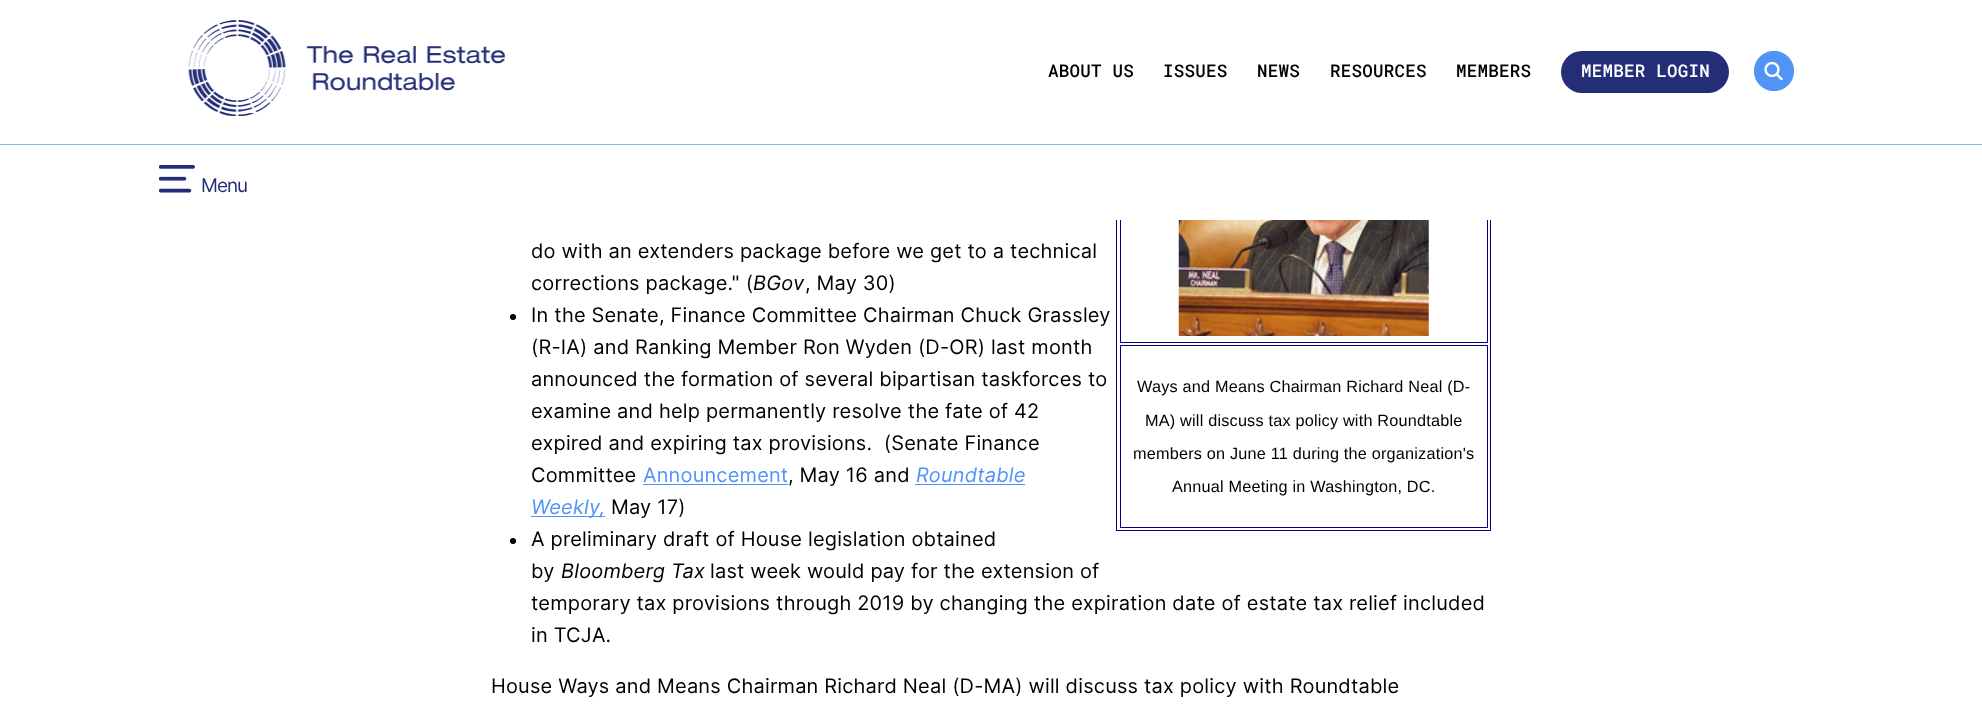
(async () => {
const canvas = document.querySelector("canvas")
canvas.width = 1982
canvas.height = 713
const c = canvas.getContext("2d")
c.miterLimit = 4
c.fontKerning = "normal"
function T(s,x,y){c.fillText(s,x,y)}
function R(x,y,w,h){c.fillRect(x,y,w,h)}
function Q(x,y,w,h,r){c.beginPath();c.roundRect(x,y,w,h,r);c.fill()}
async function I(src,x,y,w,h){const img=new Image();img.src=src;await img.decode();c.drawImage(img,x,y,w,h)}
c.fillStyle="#fff"
R(0,0,1982,713)
c.strokeStyle="#000080"
c.strokeRect(1116.5,76.5,374,454)
c.strokeRect(1120.5,80.5,367,262)
R(1116,76,375,68)
c.fillStyle="#8bb7fa"
R(0,144,1982,1)
await I("1.png",188,20,317,96)
c.letterSpacing="0.25px"
c.font="500 17.5px Roboto Mono"
c.fillStyle="#000"
T("ABOUT US",1048,77)
T("ISSUES",1163,77)
T("NEWS",1257,77)
T("RESOURCES",1330,77)
T("MEMBERS",1456,77)
c.fillStyle="#232e77"
Q(1561,51,168,42,21)
c.fillStyle="#fff"
T("MEMBER LOGIN",1581,77)
await I("2.png",1754,51,40,40)
c.beginPath()
c.roundRect(129,145,1725,75,[0,0,28,28])
c.fill()
await I("3.png",159,165,36,28)
c.letterSpacing="-1px"
c.font="19px Inter"
c.fillStyle="#232e77"
T("Menu",201,192)
c.letterSpacing="0.2px"
c.font="20px Inter"
c.fillStyle="#000"
T("do with an extenders package before we get to a technical",531,258)
T("corrections package.\" (",531,290)
c.font="italic 20px Inter"
T("BGov",753,290)
c.font="20px Inter"
T(", May 30)",805,290)
c.beginPath()
c.arc(513,317,3,0,7)
c.fill()
T("In the Senate, Finance Committee Chairman Chuck Grassley",531,322)
T("(R-IA) and Ranking Member Ron Wyden (D-OR) last month",531,354)
T("announced the formation of several bipartisan taskforces to",531,386)
T("examine and help permanently resolve the fate of 42",531,418)
T("expired and expiring tax provisions.  (Senate Finance",531,450)
T("Committee",531,482)
c.fillStyle="#5293f8"
T("Announcement",643,482)
R(643,484,145,1)
c.fillStyle="#000"
T(", May 16 and",788,482)
c.font="italic 20px Inter"
c.fillStyle="#5293f8"
T("Roundtable",916,482)
R(915,484,110,1)
R(531,516,74,1)
T("Weekly,",531,514)
c.font="20px Inter"
c.fillStyle="#000"
T("May 17)",611,514)
await I("4.png",1178,220,251,116)
c.strokeRect(1120.5,345.5,367,182)
c.font="16.25px Liberation Sans"
T("Ways and Means Chairman Richard Neal (D-",1137,392)
T("MA) will discuss tax policy with Roundtable",1145,426)
T("members on June 11 during the organization's",1133,459)
T("Annual Meeting in Washington, DC.",1172,492)
c.beginPath()
c.arc(513,541,3,0,7)
c.fill()
c.font="20px Inter"
T("A preliminary draft of House legislation obtained",531,546)
T("by",531,578)
c.font="italic 20px Inter"
T("Bloomberg Tax",561,578)
c.font="20px Inter"
T("last week would pay for the extension of",710,578)
T("temporary tax provisions through 2019 by changing the expiration date of estate tax relief included",531,610)
T("in TCJA.",531,642)
T("House Ways and Means Chairman Richard Neal (D-MA) will discuss tax policy with Roundtable",491,693)
})()
